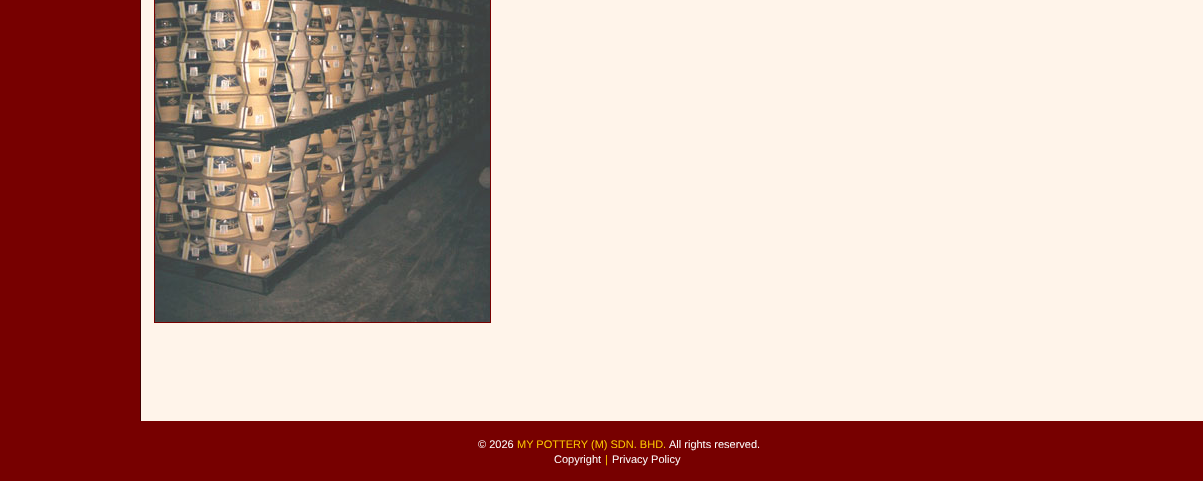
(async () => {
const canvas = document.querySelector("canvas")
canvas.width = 1203
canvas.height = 481
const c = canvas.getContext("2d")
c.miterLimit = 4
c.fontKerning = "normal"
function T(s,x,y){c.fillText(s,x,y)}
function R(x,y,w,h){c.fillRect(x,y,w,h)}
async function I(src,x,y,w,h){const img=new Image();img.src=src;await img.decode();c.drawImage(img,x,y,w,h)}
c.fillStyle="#700"
R(0,0,1203,481)
c.fillStyle="#fff4ea"
R(141,0,1062,421)
c.fillStyle="#3f0000"
R(140,0,1,421)
c.strokeStyle="#700"
c.strokeRect(154.5,-.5,336,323)
await I("1.png",155,0,335,322)
c.font="11px Liberation Sans"
c.fillStyle="#fff"
T("© 2026",478,448)
c.fillStyle="#fc0"
T("MY POTTERY (M) SDN. BHD.",517,448)
c.fillStyle="#fff"
T("All rights reserved.",669,448)
T("Copyright",554,463)
c.fillStyle="#fc0"
T("|",605,463)
c.fillStyle="#fff"
T("Privacy Policy",612,463)
})()
